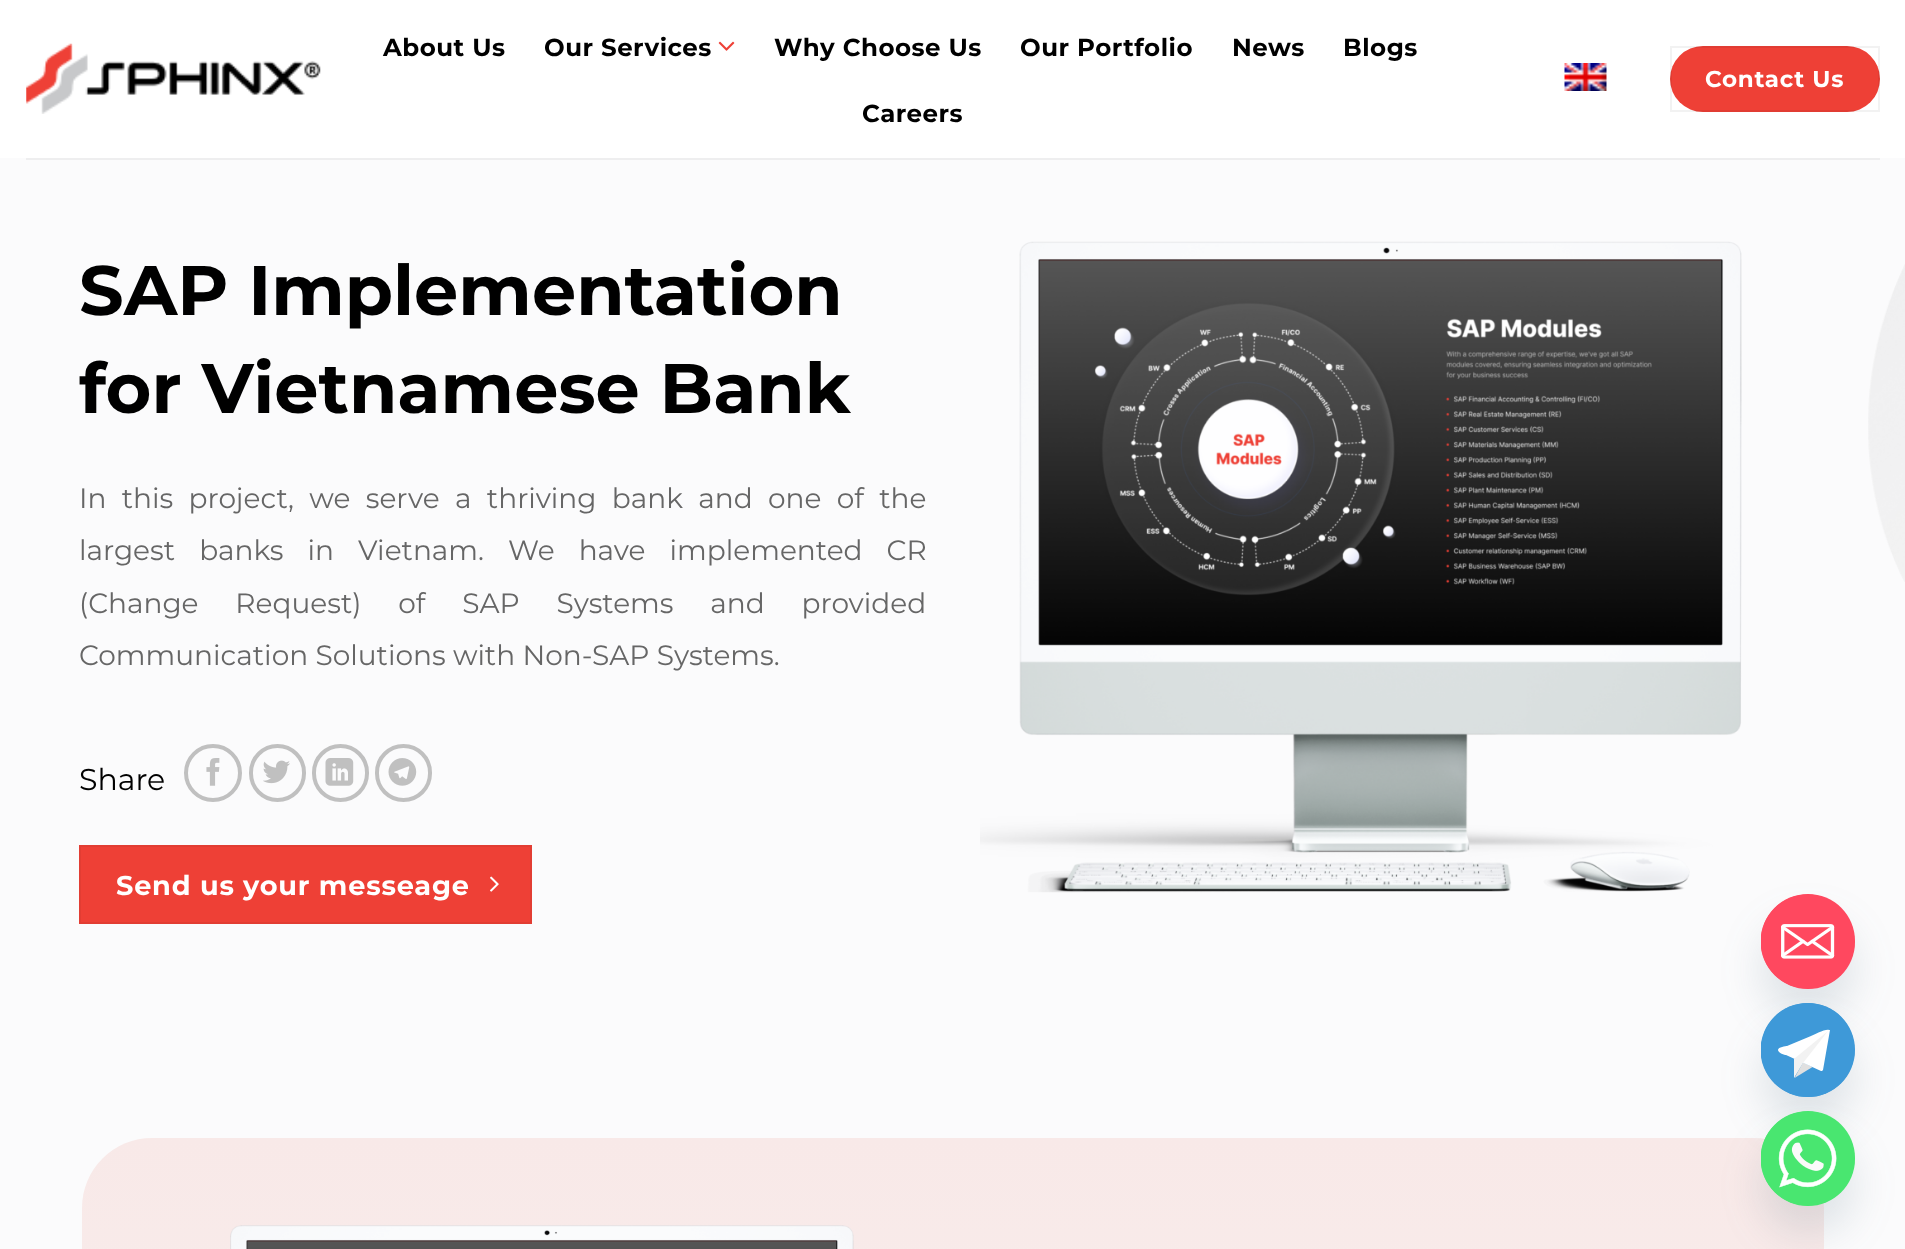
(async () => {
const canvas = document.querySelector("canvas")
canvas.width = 1905
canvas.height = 1249
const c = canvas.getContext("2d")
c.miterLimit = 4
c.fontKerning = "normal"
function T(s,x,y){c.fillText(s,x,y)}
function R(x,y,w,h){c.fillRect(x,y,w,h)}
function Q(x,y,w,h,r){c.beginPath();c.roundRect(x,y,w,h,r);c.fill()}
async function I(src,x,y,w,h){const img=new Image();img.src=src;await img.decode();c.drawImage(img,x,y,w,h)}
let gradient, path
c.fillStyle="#fbfbfc"
R(0,0,1905,1249)
c.fillStyle="#fff"
R(0,0,1905,158)
await I("1.png",26,43,295,71)
c.letterSpacing="0.5px"
c.font="bold 24.5px Montserrat"
c.fillStyle="#000"
T("About Us",383,56)
T("Our Services",544,56)
await I("2.png",718,41,17,10)
T("Why Choose Us",774,56)
T("Our Portfolio",1020,56)
T("News",1232,56)
T("Blogs",1343,56)
T("Careers",862,122)
await I("3.png",1564,63,43,28)
c.fillStyle="#ee4036"
Q(1670,46,210,66,33)
c.strokeStyle="#0000000d"
c.lineWidth=2
c.strokeRect(1671,47,208,64)
c.letterSpacing="0.75px"
c.font="bold 23px Montserrat"
c.fillStyle="#fff"
T("Contact Us",1705,87)
c.fillStyle="#eeeeef"
R(26,158,1854,2)
c.letterSpacing="0px"
c.font="bold 70px Montserrat"
c.fillStyle="#000"
T("SAP Implementation",79,315)
T("for Vietnamese Bank",79,413)
c.wordSpacing="8px"
c.font="28px Montserrat"
c.fillStyle="#666"
T("In this project, we serve a thriving bank and one of the",79,508)
c.wordSpacing="16.75px"
T("largest banks in Vietnam. We have implemented CR",79,560)
c.wordSpacing="29.5px"
T("(Change Request) of SAP Systems and provided",79,613)
c.wordSpacing="0px"
T("Communication Solutions with Non-SAP Systems.",79,665)
c.font="30px Montserrat"
c.fillStyle="#000"
T("Share",79,790)
c.beginPath()
c.arc(213,773,27,0,7)
c.strokeStyle="#c0c0c0"
c.lineWidth=4
c.stroke()
await I("4.png",206,758,14,28)
c.beginPath()
c.roundRect(251,746,53,54,26.5)
c.stroke()
await I("5.png",263,760,27,24)
c.beginPath()
c.roundRect(314,746,53,54,26.5)
c.stroke()
await I("6.png",325,758,29,28)
c.beginPath()
c.roundRect(377,746,53,54,26.5)
c.stroke()
await I("7.png",388,758,29,28)
c.fillStyle="#ee4036"
c.beginPath()
c.rect(80,846,451,77)
c.fill()
c.strokeStyle="#e23d33"
c.lineWidth=2
c.stroke()
c.letterSpacing="0.8px"
c.font="bold 27.2px Montserrat"
c.fillStyle="#fff"
T("Send us your messeage",116,895)
await I("8.png",490,876,9,16)
await I("9.png",980,241,762,652)
await I("10.png",1868,264,37,318)
gradient = c.createLinearGradient(953,1137,953,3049)
gradient.addColorStop(0,"#f8e9e8")
gradient.addColorStop(1,"#fcfcfc")
c.fillStyle = gradient
Q(82,1138,1742,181,70)
await I("11.png",230,1225,624,24)
c.fillStyle="#49687e29"
c.filter="blur(21px)"
c.beginPath()
c.roundRect(1761,922,94,95,47)
c.fill()
c.filter="none"
c.fillStyle="#ff485f"
Q(1761,894,94,95,47)
await I("12.png",1761,894,94,95)
c.fillStyle="#49687e29"
c.filter="blur(21px)"
c.beginPath()
c.roundRect(1761,1031,94,94,47)
c.fill()
c.filter="none"
c.fillStyle="#3e99d8"
c.beginPath()
c.arc(1808,1050,47,0,7)
c.fill()
c.save()
c.beginPath()
c.rect(1761,1003,94,94)
c.clip()
c.beginPath()
c.arc(1807.5,1050,47,0,7)
c.fill()
c.restore()
c.fillStyle="#e0e0e0"
path = new Path2D("M1803 1062.5l-8.5 15.5l18-11z")
c.fill(path)
c.fillStyle="#fff"
path = new Path2D("M1829 1030c-2-2-16 5-18 6l-24 10c-1 0-9 1-9 4c0 3 7 5 8 5l35 16h1l1-1l7-40z")
c.fill(path)
c.fillStyle="#f2f2f2"
path = new Path2D("M1828 1031l-34 28v19l9-15z")
c.fill(path)
c.fillStyle="#49687e29"
c.filter="blur(21px)"
c.beginPath()
c.roundRect(1761,1139,94,95,47)
c.fill()
c.filter="none"
c.fillStyle="#49e670"
Q(1761,1111,94,95,47)
await I("13.png",1761,1111,94,95)
})()
